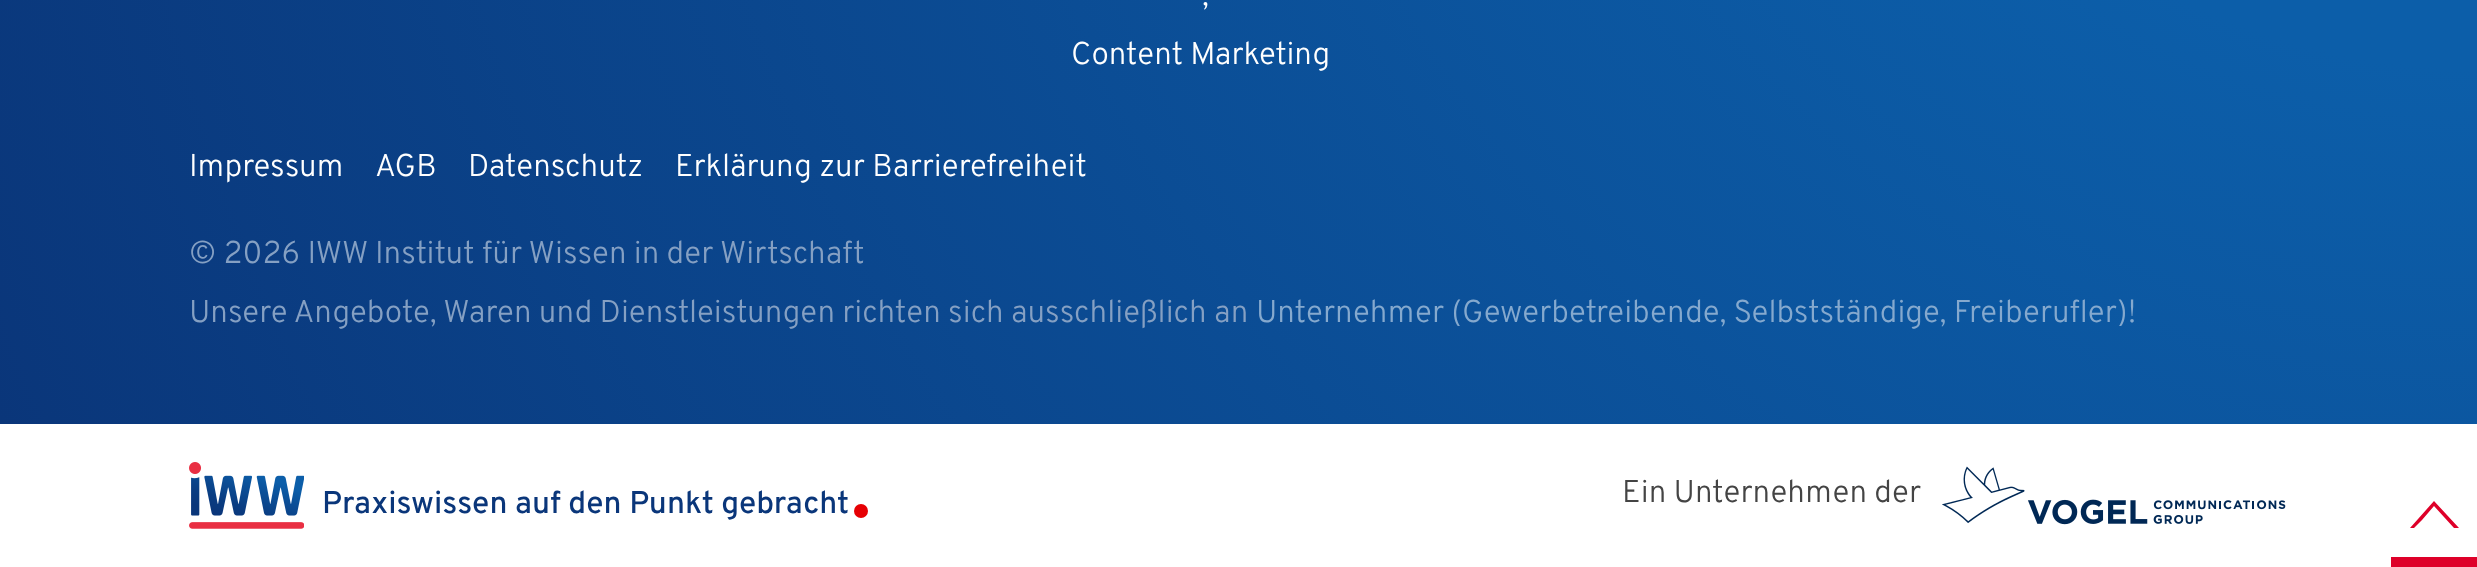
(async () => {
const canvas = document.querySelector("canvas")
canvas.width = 2477
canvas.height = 567
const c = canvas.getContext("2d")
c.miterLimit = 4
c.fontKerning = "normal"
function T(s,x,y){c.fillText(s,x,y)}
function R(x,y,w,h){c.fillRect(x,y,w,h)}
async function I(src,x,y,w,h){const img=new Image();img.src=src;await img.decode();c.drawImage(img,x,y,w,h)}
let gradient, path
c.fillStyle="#fff"
R(0,0,2477,567)
gradient = c.createRadialGradient(2478,-602,0,2478,-602,2682)
gradient.addColorStop(0,"#0c5ea9")
gradient.addColorStop(.25,"#0c5ea9")
gradient.addColorStop(1,"#0a367a")
c.fillStyle = gradient
R(0,0,2477,424)
c.font="300 31.5px Overpass"
c.fillStyle="#fff"
T(",",1202,5)
T("Content Marketing",1071,64)
T("Impressum",189,176)
T("AGB",375,176)
T("Datenschutz",468,176)
T("Erklärung zur Barrierefreiheit",675,176)
c.fillStyle="#85a0c3"
T("© 2026 IWW Institut für Wissen in der Wirtschaft",189,263)
T("Unsere Angebote, Waren und Dienstleistungen richten sich ausschließlich an",189,322)
c.fillStyle="#85a9ce"
T("Unternehmer (Gewerbetreibende, Selbstständige, Freiberufler)!",1256,322)
await I("1.png",189,462,115,67)
c.font="500 31.5px Overpass"
c.fillStyle="#0a367a"
T("Praxiswissen auf den Punkt gebracht",322,513)
c.fillStyle="#e60004"
c.beginPath()
c.arc(861,511,7,0,7)
c.fill()
c.font="300 31.5px Overpass"
c.fillStyle="#444"
T("Ein Unternehmen der",1622,502)
await I("2.png",1942,466,344,59)
c.fillStyle="#de0029"
R(2391,557,86,10)
path = new Path2D("M2422 520l12-14l20 22h5l-25-27l-24 27h4z")
c.fill(path)
})()
